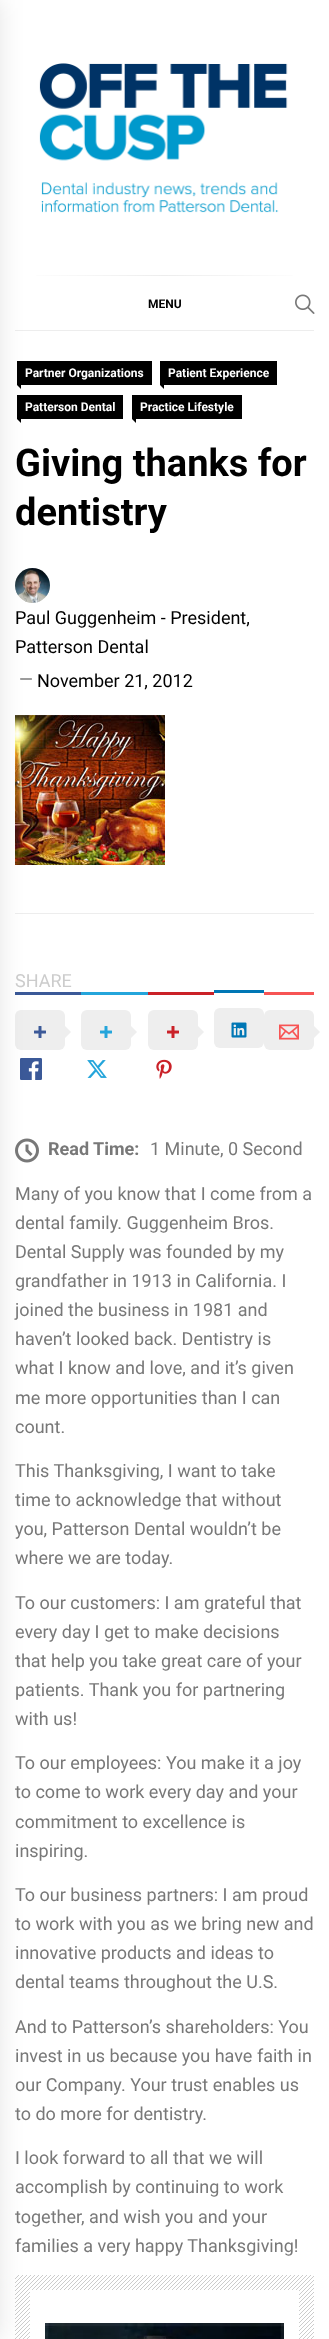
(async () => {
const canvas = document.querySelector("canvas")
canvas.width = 329
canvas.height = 2339
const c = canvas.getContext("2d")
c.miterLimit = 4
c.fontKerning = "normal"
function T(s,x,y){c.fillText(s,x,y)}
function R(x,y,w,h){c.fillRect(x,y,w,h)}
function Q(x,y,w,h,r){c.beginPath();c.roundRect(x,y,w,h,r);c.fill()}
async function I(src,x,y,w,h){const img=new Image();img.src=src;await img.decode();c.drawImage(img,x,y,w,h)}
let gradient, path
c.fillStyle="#fff"
R(0,0,329,2339)
c.fillStyle="#ededed"
R(15,330,299,1)
gradient = c.createLinearGradient(314,276,15,276)
gradient.addColorStop(0,"#fff")
gradient.addColorStop(.5,"#ededed")
gradient.addColorStop(1,"#fff")
c.fillStyle = gradient
R(36,275,257,1)
c.fillStyle="#ededed"
R(15,913,299,1)
c.fillStyle="#000"
R(17,361,135,24)
path = new Path2D("M21 385v4l-4-4z")
c.fill(path)
R(17,395,106,24)
path = new Path2D("M21 419v4l-4-4z")
c.fill(path)
await I("3.png",15,568,35,35)
await I("4.png",20,678,12,2)
await I("5.png",15,715,150,150)
c.fillStyle="#3b5998"
R(15,992,66,3)
c.fillStyle="#eee"
Q(15,1010,50,40,6)
await I("6.png",34,1026,12,12)
await I("7.png",20,1058,22,22)
await I("14.png",15,1138,24,25)
await I("15.png",15,2275,299,64)
c.fillStyle="#fff"
R(30,2290,269,49)
c.fillStyle="#0000001a"
c.filter="blur(12.5px)"
c.beginPath()
c.rect(-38,0,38,2339)
c.fill()
c.filter="none"
await I("1.png",39,63,249,150)
c.font="bold 12px Roboto"
c.fillStyle="#000"
T("MENU",148,308)
await I("2.png",295,294,20,20)
c.fillStyle="#fff"
T("Partner Organizations",25,377)
c.fillStyle="#000"
R(160,361,117,24)
c.fillStyle="#fff"
T("Patient Experience",168,377)
c.fillStyle="#000"
path = new Path2D("M164 385v4l-4-4z")
c.fill(path)
c.fillStyle="#fff"
T("Patterson Dental",25,411)
c.fillStyle="#000"
R(132,395,110,24)
c.fillStyle="#fff"
T("Practice Lifestyle",140,411)
c.fillStyle="#000"
path = new Path2D("M136 419v4l-4-4z")
c.fill(path)
c.font="bold 38px Roboto"
T("Giving thanks for",15,476)
T("dentistry",15,525)
c.font="18px Roboto"
T("Paul Guggenheim - President,",15,624)
T("Patterson Dental",15,653)
T("November 21, 2012",37,687)
c.fillStyle="#ccc"
T("SHARE",15,987)
c.fillStyle="#eee"
path = new Path2D("M65 1038v-12l6 6z")
c.fill(path)
c.fillStyle="#24a5db"
R(81,992,67,3)
c.fillStyle="#eee"
Q(81,1010,50,40,6)
await I("8.png",100,1026,12,12)
path = new Path2D("M131 1038v-12l6 6z")
c.fill(path)
await I("9.png",87,1060,20,18)
c.fillStyle="#ca2128"
R(148,992,66,3)
c.fillStyle="#eee"
Q(148,1010,50,40,6)
await I("10.png",167,1026,12,12)
path = new Path2D("M198 1038v-12l6 6z")
c.fill(path)
await I("11.png",156,1059,16,20)
c.fillStyle="#0077b5"
R(214,990,50,3)
c.fillStyle="#eee"
Q(214,1008,50,40,6)
await I("12.png",231,1022,16,16)
c.fillStyle="#f75454"
R(264,992,50,3)
c.fillStyle="#eee"
Q(264,1010,50,40,6)
await I("13.png",279,1024,20,16)
path = new Path2D("M314 1038v-12l6 6z")
c.fill(path)
c.font="bold 18px Roboto"
c.fillStyle="#787878"
T("Read Time:",48,1155)
c.font="18px Roboto"
T("1 Minute, 0 Second",150,1155)
T("Many of you know that I come from a",15,1200)
T("dental family. Guggenheim Bros.",15,1229)
T("Dental Supply was founded by my",15,1258)
T("grandfather in 1913 in California. I",15,1287)
T("joined the business in 1981 and",15,1316)
T("haven’t looked back. Dentistry is",15,1345)
T("what I know and love, and it’s given",15,1374)
T("me more opportunities than I can",15,1404)
T("count.",15,1433)
T("This Thanksgiving, I want to take",15,1477)
T("time to acknowledge that without",15,1506)
T("you, Patterson Dental wouldn’t be",15,1535)
T("where we are today.",15,1564)
T("To our customers: I am grateful that",15,1609)
T("every day I get to make decisions",15,1638)
T("that help you take great care of your",15,1667)
T("patients. Thank you for partnering",15,1696)
T("with us!",15,1725)
T("To our employees: You make it a joy",15,1769)
T("to come to work every day and your",15,1798)
T("commitment to excellence is",15,1828)
T("inspiring.",15,1857)
T("To our business partners: I am proud",15,1901)
T("to work with you as we bring new and",15,1930)
T("innovative products and ideas to",15,1959)
T("dental teams throughout the U.S.",15,1988)
T("And to Patterson’s shareholders: You",15,2033)
T("invest in us because you have faith in",15,2062)
T("our Company. Your trust enables us",15,2091)
T("to do more for dentistry.",15,2120)
T("I look forward to all that we will",15,2164)
T("accomplish by continuing to work",15,2193)
T("together, and wish you and your",15,2223)
T("families a very happy Thanksgiving!",15,2252)
await I("16.png",45,2323,239,16)
})()
